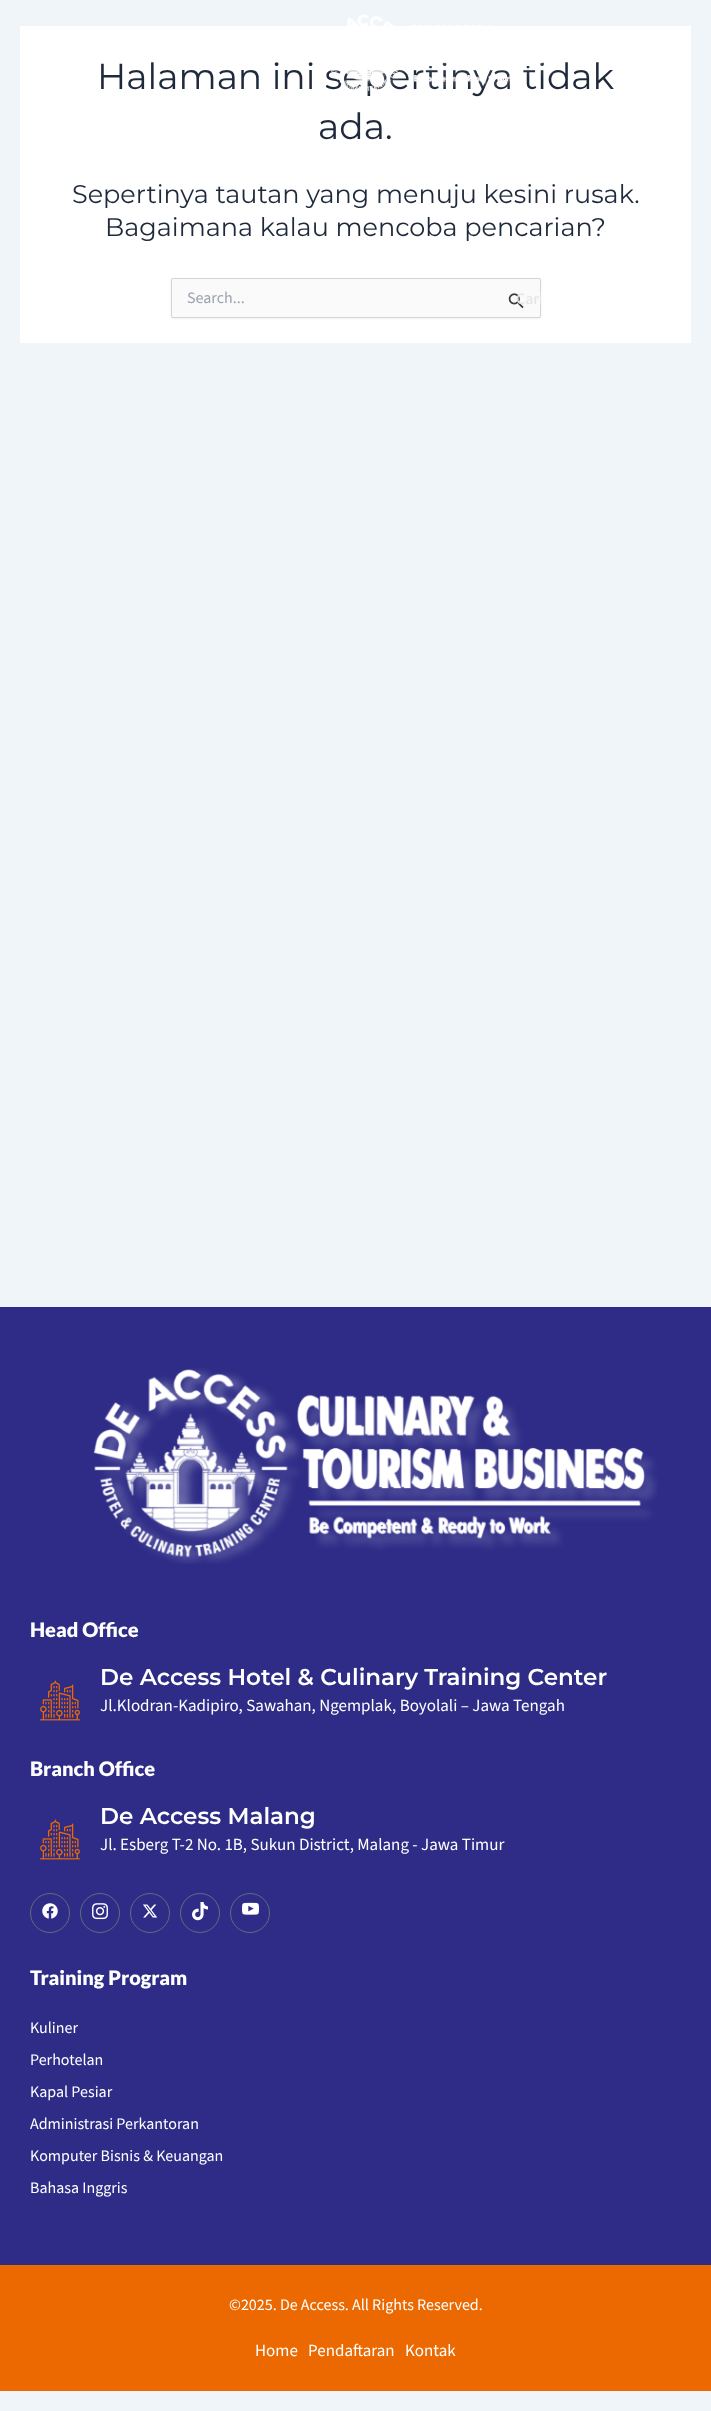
(async () => {
const canvas = document.querySelector("canvas")
canvas.width = 711
canvas.height = 2411
const c = canvas.getContext("2d")
c.miterLimit = 4
c.fontKerning = "normal"
function T(s,x,y){c.fillText(s,x,y)}
function R(x,y,w,h){c.fillRect(x,y,w,h)}
async function I(src,x,y,w,h){const img=new Image();img.src=src;await img.decode();c.drawImage(img,x,y,w,h)}
c.fillStyle="#f0f5fa"
R(0,0,711,2411)
c.fillStyle="#fff"
R(20,26,671,317)
c.font="36px Montserrat"
c.fillStyle="#1e293b"
T("Halaman ini sepertinya tidak",97,89)
await I("1.png",330,14,225,80)
T("ada.",318,139)
c.font="25.5px Montserrat"
T("Sepertinya tautan yang menuju kesini rusak.",72,203)
T("Bagaimana kalau mencoba pencarian?",105,236)
c.fillStyle="#0000000d"
c.filter="blur(1px)"
c.beginPath()
c.roundRect(171,279,370,40,2)
c.fill()
c.filter="none"
c.fillStyle="#fafafa"
c.beginPath()
c.roundRect(171.5,278.5,369,39,1.5)
c.fill()
c.strokeStyle="#d1d5db"
c.stroke()
c.font="16px 'Source Sans 3'"
c.fillStyle="#9ca3af"
T("Search...",187,303)
await I("2.png",508,293,16,16)
c.save()
c.beginPath()
c.roundRect(496,278,45,42,2)
c.clip()
c.font="500 16px 'Source Sans 3'"
c.fillStyle="#e4e5e5"
T("Cari",516,304)
c.restore()
c.fillStyle="#2e2c87"
R(0,1307,711,958)
await I("3.png",93,1368,565,196)
c.font="900 20px Lato"
c.fillStyle="#fff"
T("Head Office",30,1637)
await I("4.png",40,1680,40,41)
c.font="600 23px Montserrat"
T("De Access Hotel & Culinary Training Center",100,1685)
c.font="17px 'Source Sans 3'"
T("Jl.Klodran-Kadipiro, Sawahan, Ngemplak, Boyolali – Jawa Tengah",100,1711)
c.font="900 20px Lato"
T("Branch Office",30,1776)
await I("4.png",40,1819,40,41)
c.font="600 23px Montserrat"
T("De Access Malang",100,1824)
c.font="17px 'Source Sans 3'"
T("Jl. Esberg T-2 No. 1B, Sukun District, Malang - Jawa Timur",100,1850)
c.beginPath()
c.arc(50,1913,19.5,0,7)
c.strokeStyle="#5e6d7e"
c.stroke()
await I("5.png",42,1903,16,16)
c.beginPath()
c.arc(100,1913,19.5,0,7)
c.stroke()
await I("6.png",92,1903,16,17)
c.beginPath()
c.arc(150,1913,19.5,0,7)
c.stroke()
await I("7.png",143,1904,15,14)
c.beginPath()
c.arc(200,1913,19.5,0,7)
c.stroke()
await I("8.png",192,1902,16,19)
c.beginPath()
c.arc(250,1913,19.5,0,7)
c.stroke()
await I("9.png",242,1902,17,13)
c.font="900 20px Lato"
T("Training Program",30,1985)
c.font="16px Source Sans Pro"
T("Kuliner",30,2033)
T("Perhotelan",30,2065)
T("Kapal Pesiar",30,2097)
T("Administrasi Perkantoran",30,2129)
T("Komputer Bisnis & Keuangan",30,2161)
T("Bahasa Inggris",30,2193)
c.fillStyle="#eb6900"
R(0,2265,711,126)
c.fillStyle="#fff"
T("©2025. De Access. All Rights Reserved.",229,2310)
c.font="17px 'Source Sans 3'"
T("Home",255,2356)
T("Pendaftaran",308,2356)
T("Kontak",405,2356)
})()
